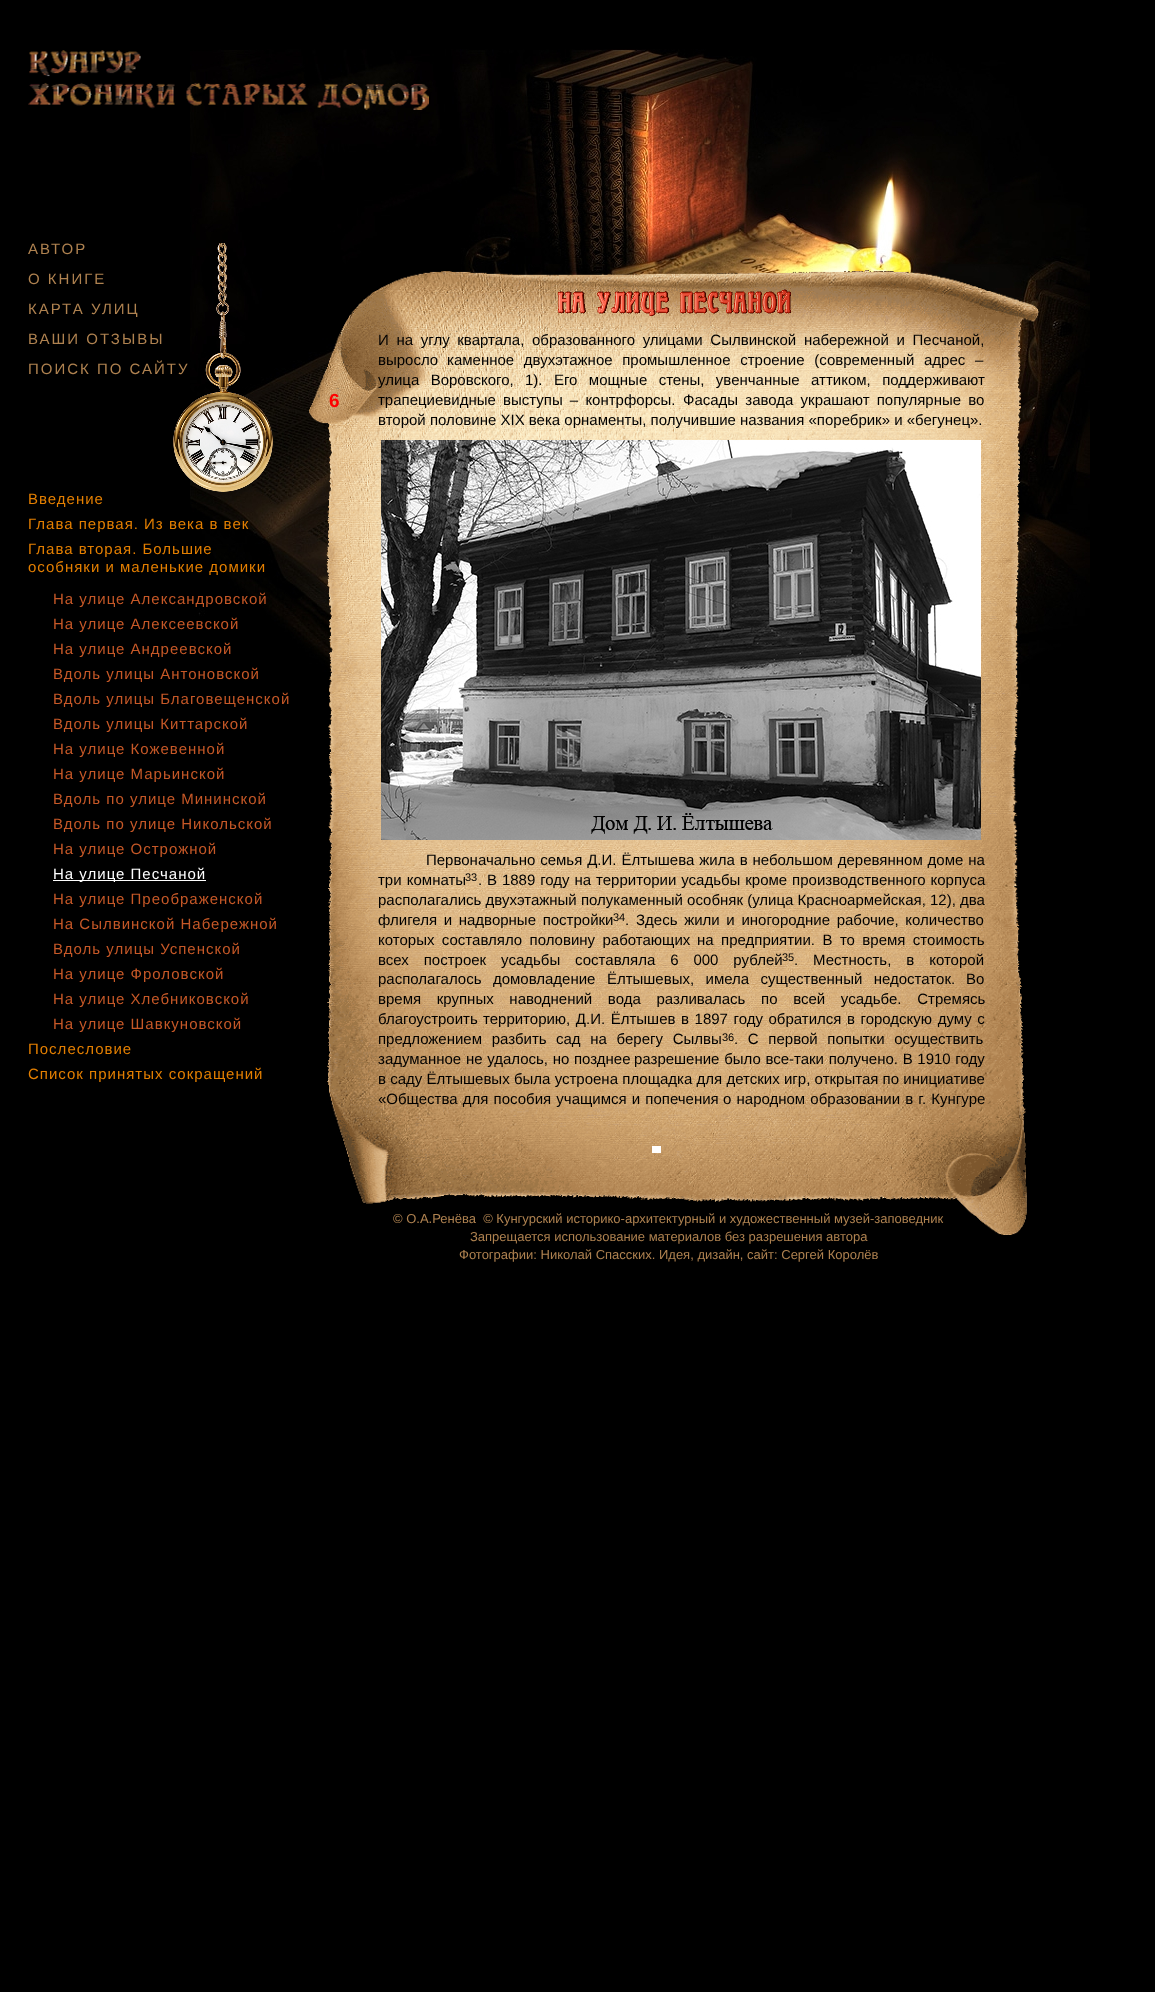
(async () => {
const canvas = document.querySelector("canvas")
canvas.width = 1155
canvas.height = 1992
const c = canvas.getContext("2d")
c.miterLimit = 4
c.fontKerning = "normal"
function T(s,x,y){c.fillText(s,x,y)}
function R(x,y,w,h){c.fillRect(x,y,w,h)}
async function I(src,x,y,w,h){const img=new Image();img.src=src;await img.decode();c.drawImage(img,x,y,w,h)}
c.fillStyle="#000"
R(0,0,1155,1992)
await I("1.png",190,49,900,653)
await I("2.png",28,50,401,60)
c.letterSpacing="2px"
c.font="15px Liberation Sans"
c.fillStyle="#af8250"
T("АВТОР",28,254)
await I("3.png",173,243,100,249)
await I("4.png",309,270,730,965)
T("О КНИГЕ",28,284)
T("КАРТА УЛИЦ",28,314)
await I("5.png",558,289,233,27)
T("ВАШИ ОТЗЫВЫ",28,344)
c.letterSpacing="0px"
c.wordSpacing="3.5px"
c.fillStyle="#000"
T("И на углу квартала, образованного улицами Сылвинской набережной и Песчаной,",378,345)
c.wordSpacing="0px"
T("выросло",378,365)
c.wordSpacing="5.5px"
T("каменное двухэтажное промышленное строение (современный адрес –",447,365)
c.wordSpacing="7.25px"
T("улица Воровского,",378,385)
T("1). Его мощные стены, увенчанные аттиком, поддерживают",525,385)
c.wordSpacing="3px"
T("трапециевидные выступы – контрфорсы.",378,405)
T("Фасады завода украшают популярные во",683,405)
c.wordSpacing="0px"
T("второй половине XIX века орнаменты, получившие названия «поребрик» и «бегунец».",378,425)
await I("6.png",381,440,600,400)
c.wordSpacing="0.75px"
T("Первоначально семья Д.И. Ёлтышева жила в небольшом деревянном доме на",426,865)
c.wordSpacing="1px"
T("три комнаты",378,885)
c.wordSpacing="0px"
c.font="11px Liberation Sans"
T("33",465,881)
c.font="15px Liberation Sans"
T(".",478,885)
c.wordSpacing="0.75px"
T("В 1889 году на территории усадьбы кроме производственного корпуса",487,885)
c.wordSpacing="0px"
T("располагались двухэтажный полукаменный особняк (улица Красноармейская, 12), два",378,905)
c.wordSpacing="2.5px"
T("флигеля и надворные постройки",378,925)
c.wordSpacing="0px"
c.font="11px Liberation Sans"
T("34",613,921)
c.font="15px Liberation Sans"
T(".",625,925)
c.wordSpacing="2.5px"
T("Здесь жили и иногородние рабочие, количество",636,925)
c.wordSpacing="3.25px"
T("которых составляло половину работающих",378,945)
T("на предприятии. В то время стоимость",697,945)
c.wordSpacing="10.75px"
T("всех построек усадьбы составляла 6 000 рублей",378,965)
c.wordSpacing="0px"
c.font="11px Liberation Sans"
T("35",782,961)
c.font="15px Liberation Sans"
T(".",794,965)
c.wordSpacing="10.75px"
T("Местность, в которой",813,965)
c.wordSpacing="7.25px"
T("располагалось домовладение Ёлтышевых, имела существенный недостаток.",378,984)
c.wordSpacing="0px"
T("Во",966,984)
c.wordSpacing="11.5px"
T("время крупных наводнений вода разливалась по всей усадьбе. Стремясь",378,1004)
c.wordSpacing="0px"
T("благоустроить",378,1024)
c.wordSpacing="1.4px"
T("территорию, Д.И. Ёлтышев в 1897 году обратился в городскую думу с",483,1024)
c.wordSpacing="5.5px"
T("предложением разбить",378,1044)
T("сад на берегу Сылвы",556,1044)
c.wordSpacing="0px"
c.font="11px Liberation Sans"
T("36",722,1041)
c.wordSpacing="5.5px"
c.font="15px Liberation Sans"
T(". С первой попытки осуществить",734,1044)
c.wordSpacing="0.5px"
T("задуманное не удалось, но позднее",378,1064)
T("разрешение было все-",634,1064)
T("таки получено. В 1910 году",794,1064)
c.wordSpacing="0.1px"
T("в саду Ёлтышевых была устроена площадка для детских игр, открытая по инициативе",378,1084)
c.wordSpacing="1px"
T("«Общества для пособия учащимся и попечения",378,1104)
T("о народном образовании в г. Кунгуре",723,1104)
c.letterSpacing="2px"
c.wordSpacing="0px"
c.fillStyle="#af8250"
T("ПОИСК ПО САЙТУ",28,374)
c.letterSpacing="0px"
c.font="bold 19px Liberation Sans"
c.fillStyle="#f00"
T("6",329,407)
c.letterSpacing="1px"
c.font="15px Liberation Sans"
c.fillStyle="#e47f00"
T("Введение",28,504)
T("Глава первая. Из века в век",28,529)
T("Глава вторая. Большие",28,554)
T("особняки и маленькие домики",28,572)
c.fillStyle="#c65827"
T("На улице Александровской",53,604)
T("На улице Алексеевской",53,629)
T("На улице Андреевской",53,654)
T("Вдоль улицы Антоновской",53,679)
T("Вдоль улицы Благовещенской",53,704)
T("Вдоль улицы Киттарской",53,729)
T("На улице Кожевенной",53,754)
T("На улице Марьинской",53,779)
T("Вдоль по улице Мининской",53,804)
T("Вдоль по улице Никольской",53,829)
T("На улице Острожной",53,854)
c.fillStyle="#fff"
R(53,880,153,1)
T("На улице Песчаной",53,879)
c.fillStyle="#c65827"
T("На улице Преображенской",53,904)
T("На Сылвинской Набережной",53,929)
T("Вдоль улицы Успенской",53,954)
T("На улице Фроловской",53,979)
T("На улице Хлебниковской",53,1004)
T("На улице Шавкуновской",53,1029)
c.fillStyle="#e47f00"
T("Послесловие",28,1054)
T("Список принятых сокращений",28,1079)
c.fillStyle="#fff"
R(652,1146,9,7)
c.letterSpacing="0px"
c.font="13px Liberation Sans"
c.fillStyle="#af8250"
T("© О.А.Ренёва  © Кунгурский историко-архитектурный и художественный музей-заповедник",393,1223)
T("Запрещается использование материалов без разрешения автора",470,1241)
T("Фотографии: Николай Спасских. Идея, дизайн, сайт: Сергей Королёв",459,1259)
})()
